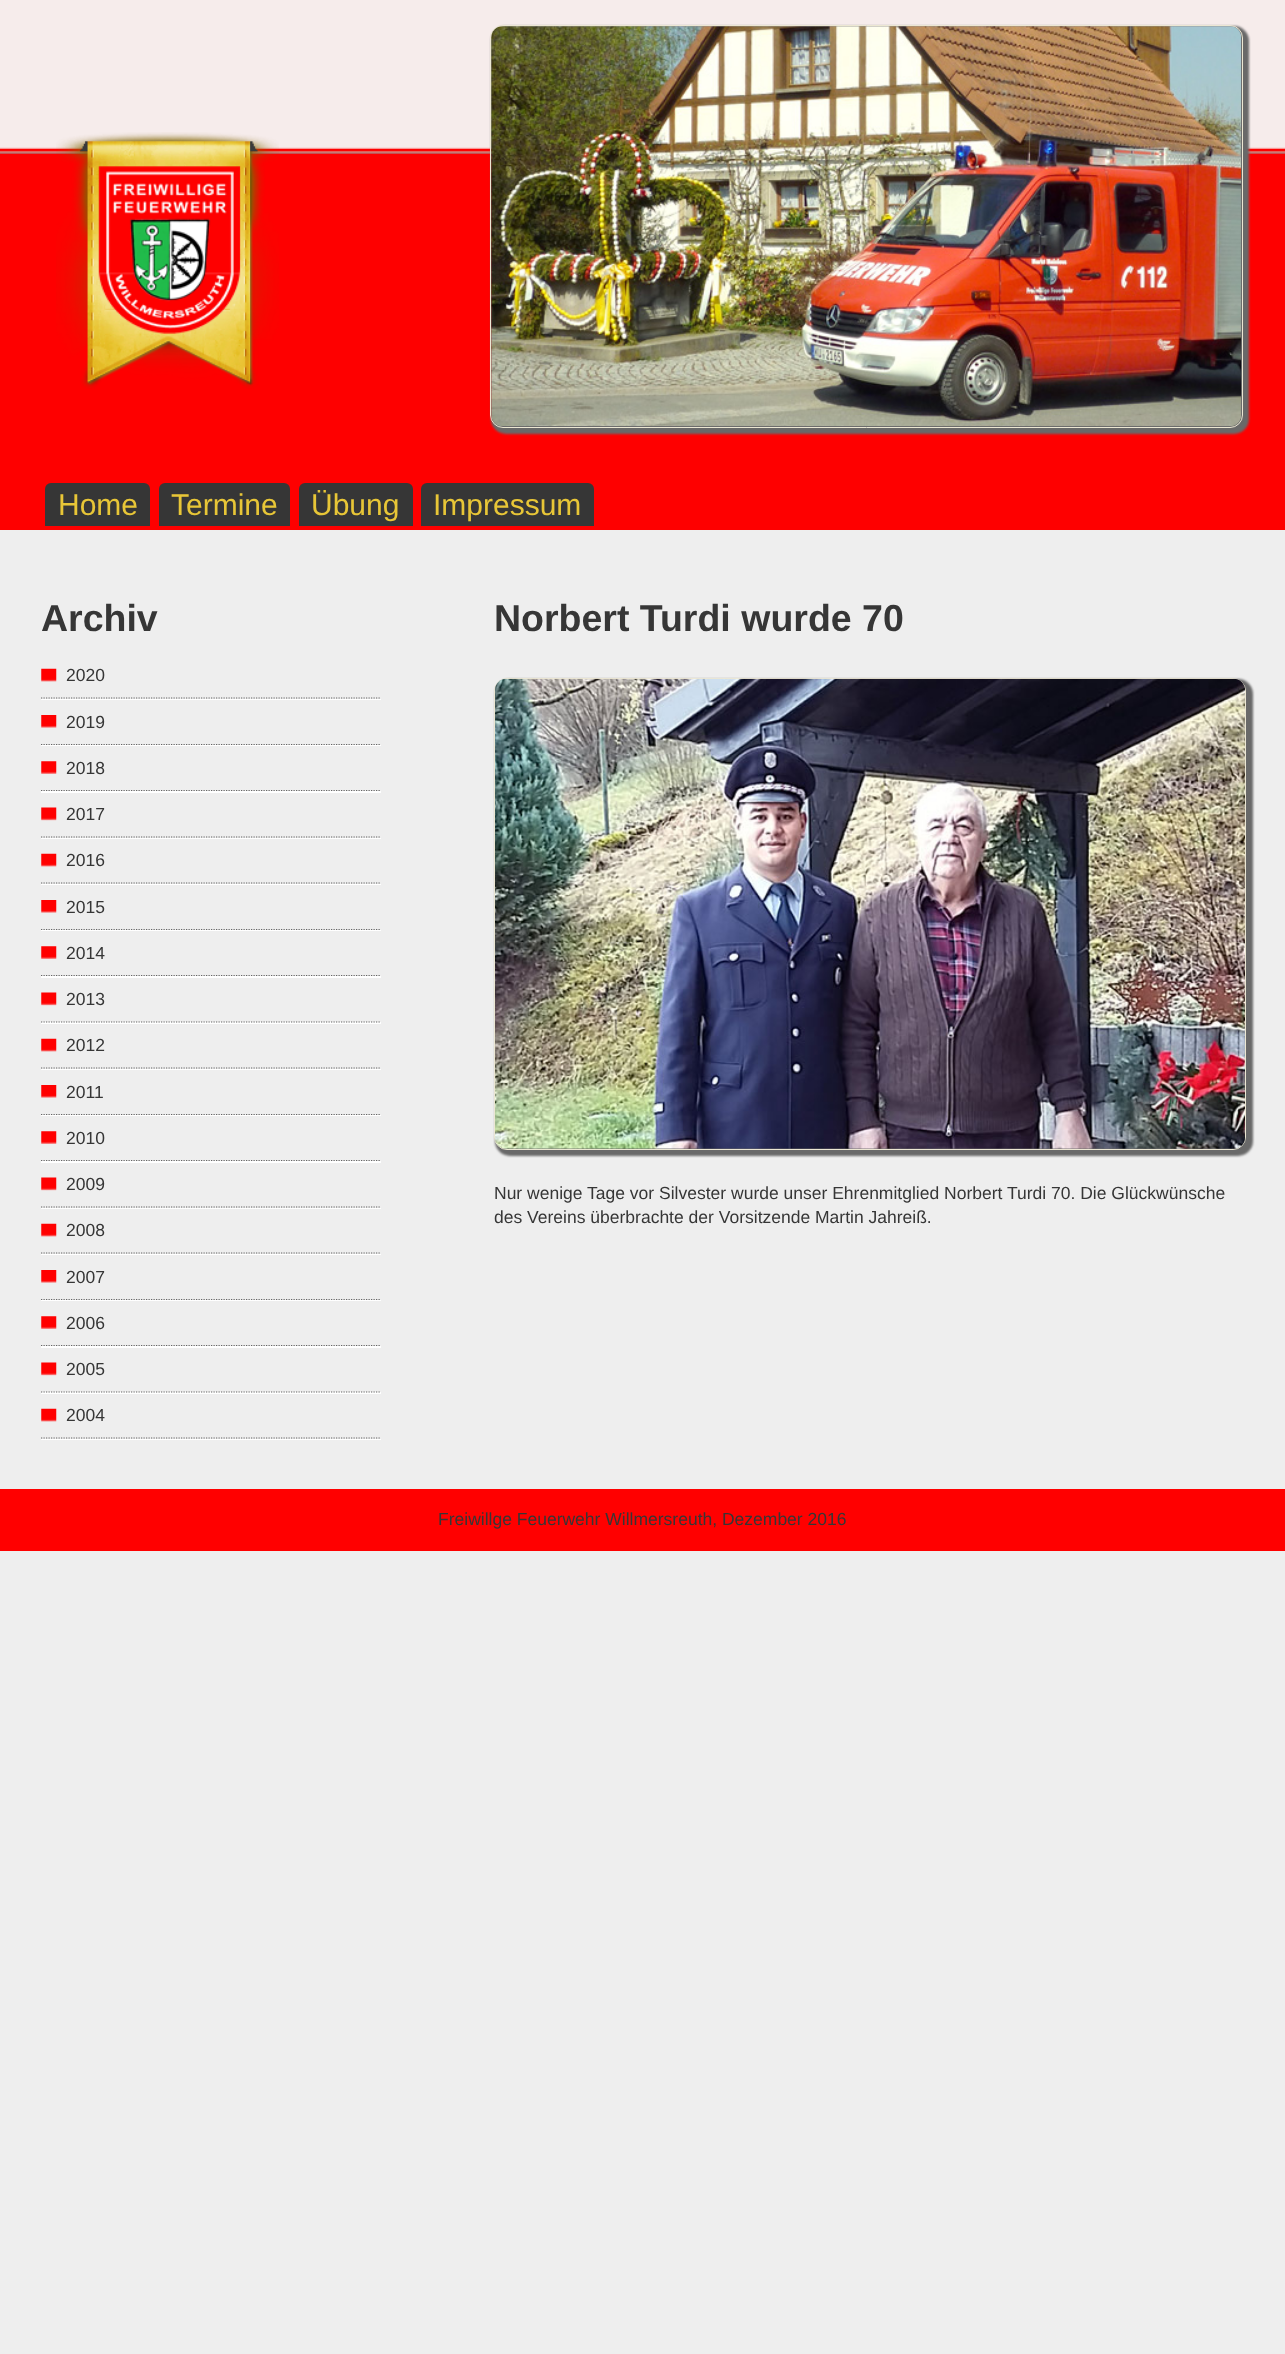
(async () => {
const canvas = document.querySelector("canvas")
canvas.width = 1285
canvas.height = 2354
const c = canvas.getContext("2d")
c.miterLimit = 4
c.fontKerning = "normal"
function T(s,x,y){c.fillText(s,x,y)}
function R(x,y,w,h){c.fillRect(x,y,w,h)}
async function I(src,x,y,w,h){const img=new Image();img.src=src;await img.decode();c.drawImage(img,x,y,w,h)}
let path
c.fillStyle="#eee"
R(0,0,1285,2354)
await I("1.png",0,0,1285,530)
await I("2.png",56,132,223,257)
c.fillStyle="#696969"
c.filter="blur(1px)"
c.beginPath()
c.roundRect(491,26,758,408,15)
c.fill()
c.filter="none"
c.beginPath()
c.roundRect(490.5,25.5,752,402,12.5)
c.strokeStyle="#ece7d3"
c.stroke()
await I("3.png",491,26,751,401)
c.fillStyle="#363636"
c.beginPath()
c.roundRect(45,483,105,43,[6,6,0,0])
c.fill()
c.font="30px Liberation Sans"
c.fillStyle="#e8c637"
T("Home",58,515)
c.fillStyle="#363636"
c.beginPath()
c.roundRect(159,483,131,43,[6,6,0,0])
c.fill()
c.fillStyle="#e8c637"
T("Termine",171,515)
c.fillStyle="#363636"
c.beginPath()
c.roundRect(299,483,114,43,[6,6,0,0])
c.fill()
c.fillStyle="#e8c637"
T("Übung",311,515)
c.fillStyle="#363636"
c.beginPath()
c.roundRect(421,483,173,43,[6,6,0,0])
c.fill()
c.fillStyle="#e8c637"
T("Impressum",433,515)
c.font="bold 37.5px Liberation Sans"
c.fillStyle="#363636"
T("Archiv",41,631)
c.fillStyle="#fff"
path = new Path2D("M41 654v46h340v-1h-340z")
c.fill(path)
await I("4.png",41,668,16,14)
path = new Path2D("M41 698h340")
c.strokeStyle="#656565"
c.lineWidth=1.2
c.setLineDash([1.25,1.25])
c.stroke(path)
c.font="17.5px Liberation Sans"
c.fillStyle="#363636"
T("2020",66,681)
c.fillStyle="#fff"
path = new Path2D("M41 700v46h340v-1h-340z")
c.fill(path)
await I("5.png",41,715,16,13)
path = new Path2D("M41 744.5h340")
c.stroke(path)
c.fillStyle="#363636"
T("2019",66,728)
c.fillStyle="#fff"
path = new Path2D("M41 746v47h340v-2h-340z")
c.fill(path)
await I("6.png",41,761,16,13)
path = new Path2D("M41 790.5h340")
c.stroke(path)
c.fillStyle="#363636"
T("2018",66,774)
c.fillStyle="#fff"
path = new Path2D("M41 793v46h340v-1h-340z")
c.fill(path)
await I("7.png",41,807,16,14)
path = new Path2D("M41 837h340")
c.stroke(path)
c.fillStyle="#363636"
T("2017",66,820)
c.fillStyle="#fff"
path = new Path2D("M41 839v46h340v-1h-340z")
c.fill(path)
await I("4.png",41,853,16,14)
path = new Path2D("M41 883h340")
c.stroke(path)
c.fillStyle="#363636"
T("2016",66,866)
c.fillStyle="#fff"
path = new Path2D("M41 885v46h340v-1h-340z")
c.fill(path)
await I("5.png",41,900,16,13)
path = new Path2D("M41 929.5h340")
c.stroke(path)
c.fillStyle="#363636"
T("2015",66,913)
c.fillStyle="#fff"
path = new Path2D("M41 931v47h340v-2h-340z")
c.fill(path)
await I("6.png",41,946,16,13)
path = new Path2D("M41 975.5h340")
c.stroke(path)
c.fillStyle="#363636"
T("2014",66,959)
c.fillStyle="#fff"
path = new Path2D("M41 978v46h340v-2h-340z")
c.fill(path)
await I("7.png",41,992,16,14)
path = new Path2D("M41 1022h340")
c.stroke(path)
c.fillStyle="#363636"
T("2013",66,1005)
c.fillStyle="#fff"
path = new Path2D("M41 1024v46h340v-1h-340z")
c.fill(path)
await I("4.png",41,1038,16,14)
path = new Path2D("M41 1068h340")
c.stroke(path)
c.fillStyle="#363636"
T("2012",66,1051)
c.fillStyle="#fff"
path = new Path2D("M41 1070v46h340v-1h-340z")
c.fill(path)
await I("5.png",41,1085,16,13)
path = new Path2D("M41 1114.5h340")
c.stroke(path)
c.fillStyle="#363636"
T("2011",66,1098)
c.fillStyle="#fff"
path = new Path2D("M41 1116v47h340v-2h-340z")
c.fill(path)
await I("6.png",41,1131,16,13)
path = new Path2D("M41 1160.5h340")
c.stroke(path)
c.fillStyle="#363636"
T("2010",66,1144)
c.fillStyle="#fff"
path = new Path2D("M41 1163v46h340v-1h-340z")
c.fill(path)
await I("7.png",41,1177,16,14)
path = new Path2D("M41 1207h340")
c.stroke(path)
c.fillStyle="#363636"
T("2009",66,1190)
c.fillStyle="#fff"
path = new Path2D("M41 1209v46h340v-1h-340z")
c.fill(path)
await I("4.png",41,1223,16,14)
path = new Path2D("M41 1253h340")
c.stroke(path)
c.fillStyle="#363636"
T("2008",66,1236)
c.fillStyle="#fff"
path = new Path2D("M41 1255v46h340v-1h-340z")
c.fill(path)
await I("5.png",41,1270,16,13)
path = new Path2D("M41 1299.5h340")
c.stroke(path)
c.fillStyle="#363636"
T("2007",66,1283)
c.fillStyle="#fff"
path = new Path2D("M41 1301v47h340v-2h-340z")
c.fill(path)
await I("6.png",41,1316,16,13)
path = new Path2D("M41 1345.5h340")
c.stroke(path)
c.fillStyle="#363636"
T("2006",66,1329)
c.fillStyle="#fff"
path = new Path2D("M41 1348v46h340v-2h-340z")
c.fill(path)
await I("7.png",41,1362,16,14)
path = new Path2D("M41 1392h340")
c.stroke(path)
c.fillStyle="#363636"
T("2005",66,1375)
c.fillStyle="#fff"
path = new Path2D("M41 1394v46h340v-1h-340z")
c.fill(path)
await I("4.png",41,1408,16,14)
path = new Path2D("M41 1438h340")
c.stroke(path)
c.fillStyle="#363636"
T("2004",66,1421)
c.font="bold 37.5px Liberation Sans"
T("Norbert Turdi wurde 70",494,631)
c.fillStyle="#696969"
c.filter="blur(1px)"
c.beginPath()
c.roundRect(495,679,758,477,15)
c.fill()
c.filter="none"
c.beginPath()
c.roundRect(494.5,678.5,751,471,12.5)
c.strokeStyle="#ece7d3"
c.lineWidth=1
c.setLineDash([])
c.stroke()
await I("8.png",495,678,750,471)
c.font="17.5px Liberation Sans"
c.fillStyle="#363636"
T("Nur wenige Tage vor Silvester wurde unser Ehrenmitglied Norbert Turdi 70. Die Glückwünsche",494,1199)
T("des Vereins überbrachte der Vorsitzende Martin Jahreiß.",494,1223)
c.fillStyle="#f00"
R(0,1489,1285,62)
c.fillStyle="#363636"
T("Freiwillge Feuerwehr Willmersreuth, Dezember 2016",438,1525)
})()
